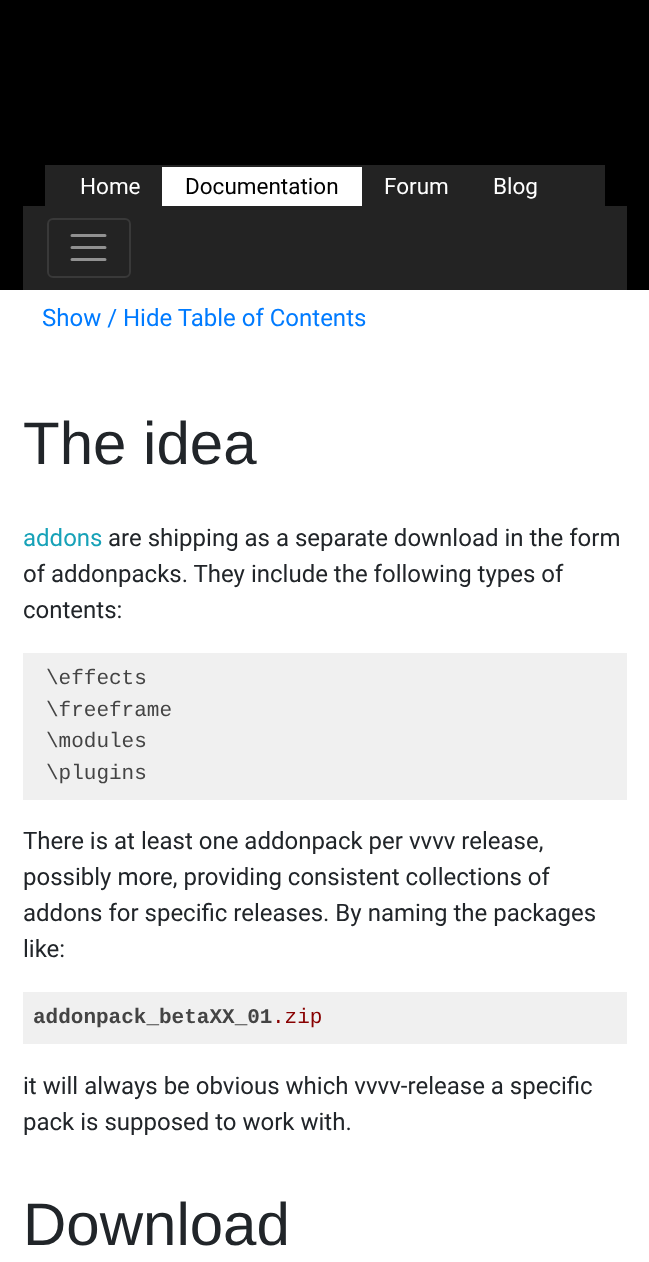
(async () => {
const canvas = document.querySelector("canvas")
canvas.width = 649
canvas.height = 1262
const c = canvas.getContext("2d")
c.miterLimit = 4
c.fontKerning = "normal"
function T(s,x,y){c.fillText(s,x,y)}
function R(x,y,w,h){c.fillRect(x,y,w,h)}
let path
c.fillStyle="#fff"
R(0,0,649,1262)
c.fillStyle="#000"
R(0,0,649,290)
c.fillStyle="#232323"
R(45,165,560,41)
c.font="22.5px Roboto"
c.fillStyle="#fff"
T("Home",80,194)
R(162,167,200,39)
c.fillStyle="#000"
T("Documentation",185,194)
c.fillStyle="#fff"
T("Forum",384,194)
T("Blog",493,194)
c.fillStyle="#232323"
R(23,206,604,84)
c.beginPath()
c.roundRect(48,219,82,58,5)
c.strokeStyle="#393939"
c.lineWidth=2
c.stroke()
path = new Path2D("M72 235.5h33m-33 12h33m-33 12h33")
c.strokeStyle="#919191"
c.lineWidth=3
c.lineCap="round"
c.stroke(path)
c.font="24px Roboto"
c.fillStyle="#007bff"
T("Show / Hide Table of Contents",42,326)
c.font="60px Liberation Sans"
c.fillStyle="#212529"
T("The idea",23,464)
c.font="24px Roboto"
c.fillStyle="#17a2b8"
T("addons",23,546)
c.fillStyle="#212529"
T("are shipping as a separate download in the form",108,546)
T("of addonpacks. They include the following types of",23,582)
T("contents:",23,618)
c.fillStyle="#f0f0f0"
R(23,653,604,147)
c.font="21px Liberation Mono"
c.fillStyle="#444"
T("\\effects",46,684)
T("\\freeframe",46,716)
T("\\modules",46,747)
T("\\plugins",46,779)
c.font="24px Roboto"
c.fillStyle="#212529"
T("There is at least one addonpack per vvvv release,",23,849)
T("possibly more, providing consistent collections of",23,885)
T("addons for specific releases. By naming the packages",23,921)
T("like:",23,957)
c.fillStyle="#f0f0f0"
R(23,992,604,52)
c.font="bold 21px Liberation Mono"
c.fillStyle="#444"
T("addonpack_betaXX_01",33,1023)
c.font="21px Liberation Mono"
c.fillStyle="#800"
T(".zip",272,1023)
c.font="24px Roboto"
c.fillStyle="#212529"
T("it will always be obvious which vvvv-release a specific",23,1094)
T("pack is supposed to work with.",23,1130)
c.font="60px Liberation Sans"
T("Download",23,1245)
})()
